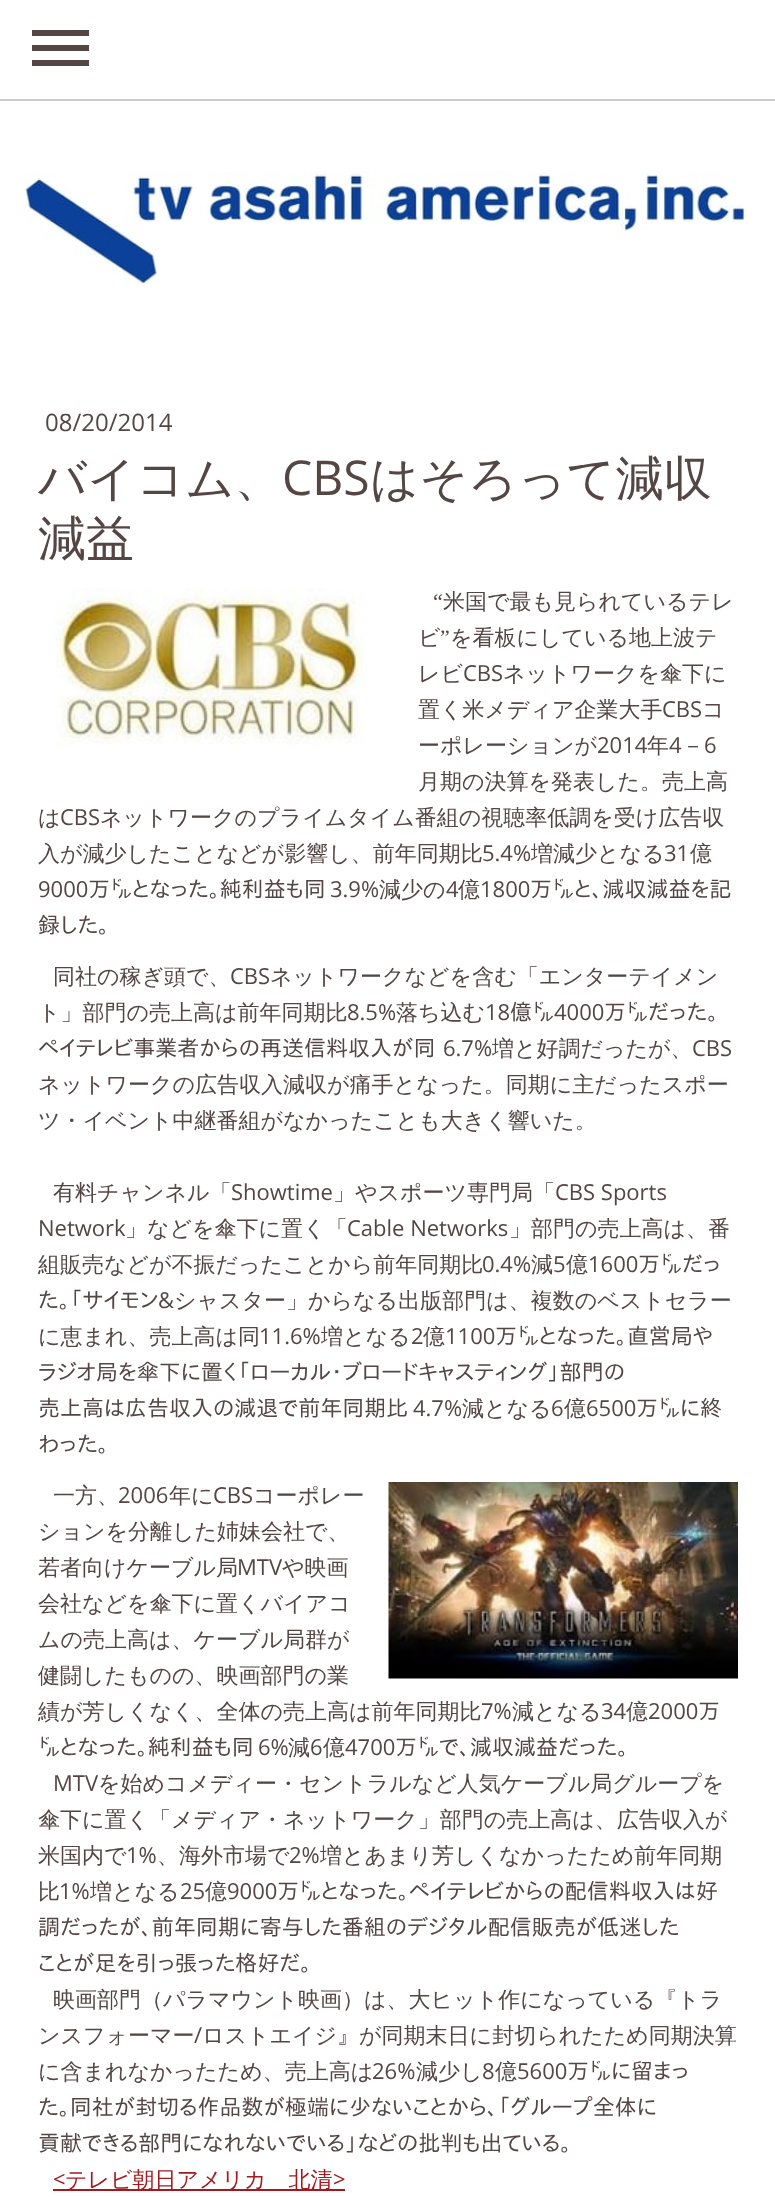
(async () => {
const canvas = document.querySelector("canvas")
canvas.width = 775
canvas.height = 2197
const c = canvas.getContext("2d")
c.miterLimit = 4
c.fontKerning = "normal"
function T(s,x,y){c.fillText(s,x,y)}
function R(x,y,w,h){c.fillRect(x,y,w,h)}
async function I(src,x,y,w,h){const img=new Image();img.src=src;await img.decode();c.drawImage(img,x,y,w,h)}
c.fillStyle="#fff"
R(0,0,775,2197)
c.fillStyle="#544645"
R(32,45,57,6)
R(32,30,57,6)
R(32,60,57,6)
c.fillStyle="#ccc"
R(0,99,775,2)
await I("1.png",24,171,723,116)
c.font="24px Open Sans"
c.fillStyle="#544645"
T("08/20/2014",45,431)
c.font="500 48px WenQuanYi Zen Hei"
T("バイコム、",38,495)
c.font="48px Open Sans"
T("CBS",282,495)
c.font="500 48px WenQuanYi Zen Hei"
T("はそろって減収",370,495)
T("減益",38,555)
await I("2.png",55,588,312,161)
c.font="22px Liberation Serif"
T("“",433,609)
c.font="500 22px WenQuanYi Zen Hei"
T("米国で最も見られているテレ",443,609)
T("ビ",418,645)
c.font="22px Liberation Serif"
T("”",440,645)
c.font="500 22px WenQuanYi Zen Hei"
T("を看板にしている地上波テ",450,645)
T("レビ",418,681)
c.font="22px Open Sans"
T("CBS",463,681)
c.font="500 22px WenQuanYi Zen Hei"
T("ネットワークを傘下に",503,681)
T("置く米メディア企業大手",418,717)
c.font="22px Open Sans"
T("CBS",662,717)
c.font="500 22px WenQuanYi Zen Hei"
T("コ",702,717)
T("ーポレーションが",418,753)
c.font="22px Open Sans"
T("2014",597,753)
c.font="500 22px WenQuanYi Zen Hei"
T("年",647,753)
c.font="22px Open Sans"
T("4",669,753)
c.font="500 22px WenQuanYi Zen Hei"
T("－",682,753)
c.font="22px Open Sans"
T("6",704,753)
c.font="500 22px WenQuanYi Zen Hei"
T("月期の決算を発表した。売上高",418,789)
T("は",38,825)
c.font="22px Open Sans"
T("CBS",60,825)
c.font="500 22px WenQuanYi Zen Hei"
T("ネットワークのプライムタイム番組の視聴率低調を受け広告収",100,825)
T("入が減少したことなどが影響し、前年同期比",38,861)
c.font="22px Open Sans"
T("5.4%",482,861)
c.font="500 22px WenQuanYi Zen Hei"
T("増減少となる",531,861)
c.font="22px Open Sans"
T("31",664,861)
c.font="500 22px WenQuanYi Zen Hei"
T("億",690,861)
c.font="22px Open Sans"
T("9000",38,897)
c.font="22px IPAPGothic"
T("万㌦となった。純利益も同",88,897)
c.font="22px Open Sans"
T("3.9%",330,897)
c.font="500 22px WenQuanYi Zen Hei"
T("減少の",379,897)
c.font="22px Open Sans"
T("4",446,897)
c.font="500 22px WenQuanYi Zen Hei"
T("億",458,897)
c.font="22px Open Sans"
T("1800",480,897)
c.font="22px IPAPGothic"
T("万㌦と、減収減益を記",530,897)
T("録した。",38,933)
c.font="500 22px WenQuanYi Zen Hei"
T("同社の稼ぎ頭で、",53,984)
c.font="22px Open Sans"
T("CBS",230,984)
c.font="500 22px WenQuanYi Zen Hei"
T("ネットワークなどを含む「エンターテイメン",270,984)
T("ト」部門の売上高は前年同期比",38,1020)
c.font="22px Open Sans"
T("8.5%",347,1020)
c.font="500 22px WenQuanYi Zen Hei"
T("落ち込む",396,1020)
c.font="22px Open Sans"
T("18",485,1020)
c.font="22px IPAPGothic"
T("億㌦",510,1020)
c.font="22px Open Sans"
T("4000",554,1020)
c.font="22px IPAPGothic"
T("万㌦だった。",604,1020)
T("ペイテレビ事業者からの再送信料収入が同",38,1056)
c.font="22px Open Sans"
T("6.7%",443,1056)
c.font="500 22px WenQuanYi Zen Hei"
T("増と好調だったが、",492,1056)
c.font="22px Open Sans"
T("CBS",692,1056)
c.font="500 22px WenQuanYi Zen Hei"
T("ネットワークの広告収入減収が痛手となった。同期に主だったスポー",38,1092)
T("ツ・イベント中継番組がなかったことも大きく響いた。",38,1128)
T("有料チャンネル「",53,1200)
c.font="22px Open Sans"
T("Showtime",231,1200)
c.font="500 22px WenQuanYi Zen Hei"
T("」やスポーツ専門局「",333,1200)
c.font="22px Open Sans"
T("CBS Sports",555,1200)
T("Network",38,1236)
c.font="500 22px WenQuanYi Zen Hei"
T("」などを傘下に置く「",125,1236)
c.font="22px Open Sans"
T("Cable Networks",347,1236)
c.font="500 22px WenQuanYi Zen Hei"
T("」部門の売上高は、番",509,1236)
T("組販売などが不振だったことから前年同期比",38,1272)
c.font="22px Open Sans"
T("0.4%",482,1272)
c.font="500 22px WenQuanYi Zen Hei"
T("減",531,1272)
c.font="22px Open Sans"
T("5",553,1272)
c.font="500 22px WenQuanYi Zen Hei"
T("億",566,1272)
c.font="22px Open Sans"
T("1600",588,1272)
c.font="22px IPAPGothic"
T("万㌦だっ",638,1272)
T("た。「サイモン",38,1308)
c.font="22px Open Sans"
T("&",158,1308)
c.font="500 22px WenQuanYi Zen Hei"
T("シャスター」からなる出版部門は、複数のベストセラー",174,1308)
T("に恵まれ、売上高は同",38,1344)
c.font="22px Open Sans"
T("11.6%",259,1344)
c.font="500 22px WenQuanYi Zen Hei"
T("増となる",321,1344)
c.font="22px Open Sans"
T("2",411,1344)
c.font="500 22px WenQuanYi Zen Hei"
T("億",423,1344)
c.font="22px Open Sans"
T("1100",445,1344)
c.font="22px IPAPGothic"
T("万㌦となった。直営局や",495,1344)
T("ラジオ局を傘下に置く「ローカル・ブロードキャスティング」部門の",38,1380)
T("売上高は広告収入の減退で前年同期比",38,1416)
c.font="22px Open Sans"
T("4.7%",413,1416)
c.font="500 22px WenQuanYi Zen Hei"
T("減となる",462,1416)
c.font="22px Open Sans"
T("6",551,1416)
c.font="500 22px WenQuanYi Zen Hei"
T("億",564,1416)
c.font="22px Open Sans"
T("6500",586,1416)
c.font="22px IPAPGothic"
T("万㌦に終",636,1416)
T("わった。",38,1452)
await I("3.png",388,1482,350,197)
c.font="500 22px WenQuanYi Zen Hei"
T("一方、",53,1503)
c.font="22px Open Sans"
T("2006",118,1503)
c.font="500 22px WenQuanYi Zen Hei"
T("年に",169,1503)
c.font="22px Open Sans"
T("CBS",213,1503)
c.font="500 22px WenQuanYi Zen Hei"
T("コーポレー",253,1503)
T("ションを分離した姉妹会社で、",38,1539)
T("若者向けケーブル局",38,1575)
c.font="22px Open Sans"
T("MTV",237,1575)
c.font="500 22px WenQuanYi Zen Hei"
T("や映画",282,1575)
T("会社などを傘下に置くバイアコ",38,1611)
T("ムの売上高は、ケーブル局群が",38,1647)
T("健闘したものの、映画部門の業",38,1683)
T("績が芳しくなく、全体の売上高は前年同期比",38,1719)
c.font="22px Open Sans"
T("7%",481,1719)
c.font="500 22px WenQuanYi Zen Hei"
T("減となる",512,1719)
c.font="22px Open Sans"
T("34",601,1719)
c.font="500 22px WenQuanYi Zen Hei"
T("億",626,1719)
c.font="22px Open Sans"
T("2000",648,1719)
c.font="22px IPAPGothic"
T("万",698,1719)
T("㌦となった。純利益も同",38,1755)
c.font="22px Open Sans"
T("6%",258,1755)
c.font="500 22px WenQuanYi Zen Hei"
T("減",288,1755)
c.font="22px Open Sans"
T("6",310,1755)
c.font="500 22px WenQuanYi Zen Hei"
T("億",323,1755)
c.font="22px Open Sans"
T("4700",345,1755)
c.font="22px IPAPGothic"
T("万㌦で、減収減益だった。",395,1755)
c.font="22px Open Sans"
T("MTV",53,1791)
c.font="500 22px WenQuanYi Zen Hei"
T("を始めコメディー・セントラルなど人気ケーブル局グループを",98,1791)
T("傘下に置く「メディア・ネットワーク」部門の売上高は、広告収入が",38,1827)
T("米国内で",38,1863)
c.font="22px Open Sans"
T("1%",126,1863)
c.font="500 22px WenQuanYi Zen Hei"
T("、海外市場で",157,1863)
c.font="22px Open Sans"
T("2%",289,1863)
c.font="500 22px WenQuanYi Zen Hei"
T("増とあまり芳しくなかったため前年同期",320,1863)
T("比",38,1899)
c.font="22px Open Sans"
T("1%",59,1899)
c.font="500 22px WenQuanYi Zen Hei"
T("増となる",90,1899)
c.font="22px Open Sans"
T("25",180,1899)
c.font="500 22px WenQuanYi Zen Hei"
T("億",205,1899)
c.font="22px Open Sans"
T("9000",227,1899)
c.font="22px IPAPGothic"
T("万㌦となった。ペイテレビからの配信料収入は好",277,1899)
T("調だったが、前年同期に寄与した番組のデジタル配信販売が低迷した",38,1935)
T("ことが足を引っ張った格好だ。",38,1971)
c.font="500 22px WenQuanYi Zen Hei"
T("映画部門（パラマウント映画）は、大ヒット作になっている『トラ",53,2007)
T("ンスフォーマー",38,2043)
c.font="22px Open Sans"
T("/",194,2043)
c.font="500 22px WenQuanYi Zen Hei"
T("ロストエイジ』が同期末日に封切られたため同期決算",202,2043)
T("に含まれなかったため、売上高は",38,2079)
c.font="22px Open Sans"
T("26%",372,2079)
c.font="500 22px WenQuanYi Zen Hei"
T("減少し",416,2079)
c.font="22px Open Sans"
T("8",482,2079)
c.font="500 22px WenQuanYi Zen Hei"
T("億",495,2079)
c.font="22px Open Sans"
T("5600",517,2079)
c.font="22px IPAPGothic"
T("万㌦に留まっ",567,2079)
T("た。同社が封切る作品数が極端に少ないことから、「グループ全体に",38,2115)
T("貢献できる部門になれないでいる」などの批判も出ている。",38,2151)
c.font="22px Open Sans"
c.fillStyle="#a21a20"
T("<",53,2187)
R(53,2189,292,2)
c.font="500 22px WenQuanYi Zen Hei"
T("テレビ朝日アメリカ　北清",65,2187)
c.font="22px Open Sans"
T(">",333,2187)
})()
